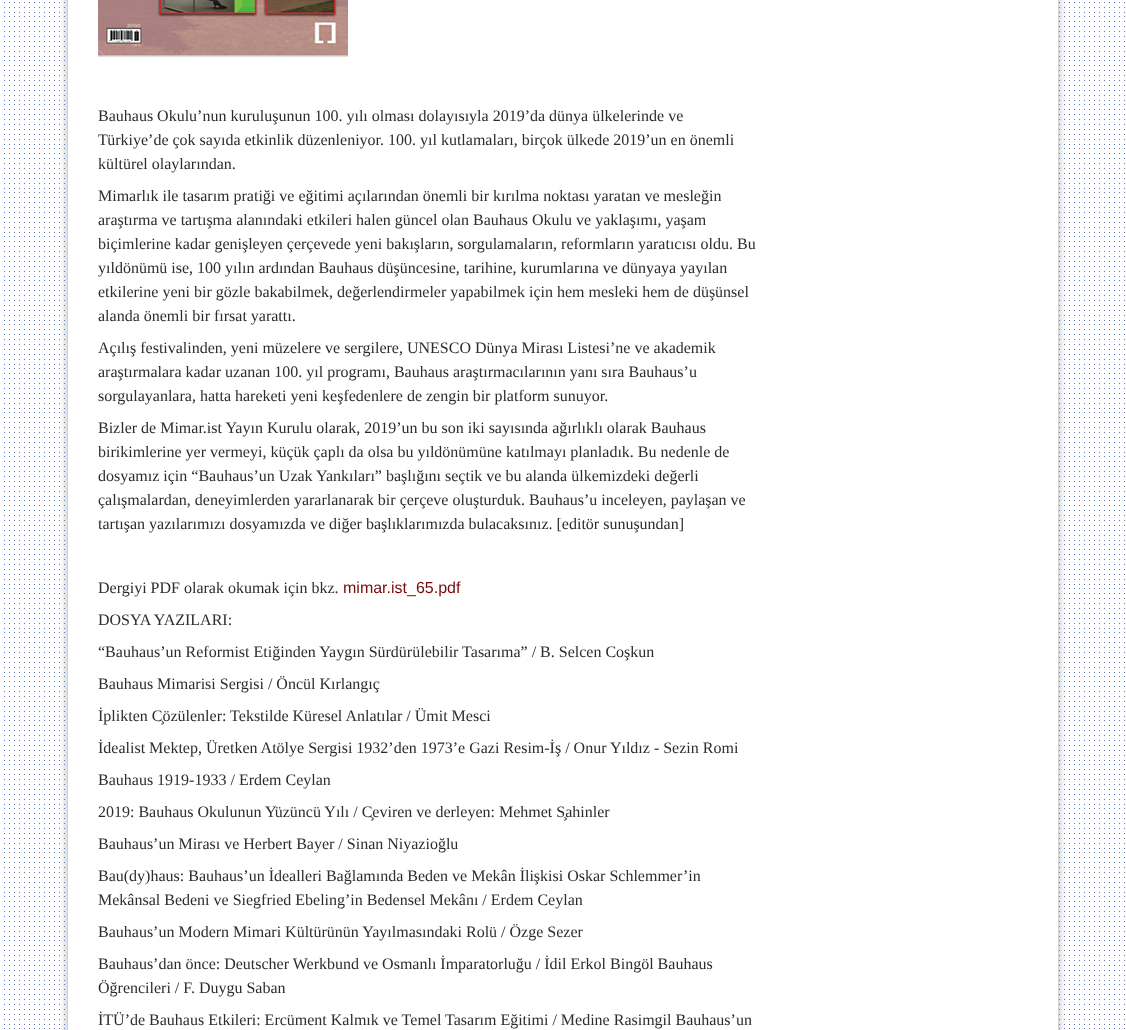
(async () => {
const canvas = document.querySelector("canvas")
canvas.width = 1126
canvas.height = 1030
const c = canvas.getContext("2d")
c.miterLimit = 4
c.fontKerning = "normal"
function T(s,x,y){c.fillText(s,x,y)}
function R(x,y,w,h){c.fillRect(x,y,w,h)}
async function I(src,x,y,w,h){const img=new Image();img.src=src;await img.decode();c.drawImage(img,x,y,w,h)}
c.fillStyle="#fff"
R(0,0,1126,1030)
await I("1.png",4,295,1121,734)
await I("2.png",4,2,1121,289)
await I("3.png",61,0,1004,1030)
await I("4.png",98,0,250,57)
c.font="16px Liberation Serif"
c.fillStyle="#2d2c2c"
T("Bauhaus Okulu’nun kuruluşunun 100. yılı olması dolayısıyla 2019’da dünya ülkelerinde ve",98,121)
T("Türkiye’de çok sayıda etkinlik düzenleniyor. 100. yıl kutlamaları, birçok ülkede 2019’un en önemli",98,145)
T("kültürel olaylarından.",98,169)
T("Mimarlık ile tasarım pratiği ve eğitimi açılarından önemli bir kırılma noktası yaratan ve mesleğin",98,201)
T("araştırma ve tartışma alanındaki etkileri halen güncel olan Bauhaus Okulu ve yaklaşımı, yaşam",98,225)
T("biçimlerine kadar genişleyen çerçevede yeni bakışların, sorgulamaların, reformların yaratıcısı oldu. Bu",98,249)
T("yıldönümü ise, 100 yılın ardından Bauhaus düşüncesine, tarihine, kurumlarına ve dünyaya yayılan",98,273)
T("etkilerine yeni bir gözle bakabilmek, değerlendirmeler yapabilmek için hem mesleki hem de düşünsel",98,297)
T("alanda önemli bir fırsat yarattı.",98,321)
T("Açılış festivalinden, yeni müzelere ve sergilere, UNESCO Dünya Mirası Listesi’ne ve akademik",98,353)
T("araştırmalara kadar uzanan 100. yıl programı, Bauhaus araştırmacılarının yanı sıra Bauhaus’u",98,377)
T("sorgulayanlara, hatta hareketi yeni keşfedenlere de zengin bir platform sunuyor.",98,401)
T("Bizler de Mimar.ist Yayın Kurulu olarak, 2019’un bu son iki sayısında ağırlıklı olarak Bauhaus",98,433)
T("birikimlerine yer vermeyi, küçük çaplı da olsa bu yıldönümüne katılmayı planladık. Bu nedenle de",98,457)
T("dosyamız için “Bauhaus’un Uzak Yankıları” başlığını seçtik ve bu alanda ülkemizdeki değerli",98,481)
T("çalışmalardan, deneyimlerden yararlanarak bir çerçeve oluşturduk. Bauhaus’u inceleyen, paylaşan ve",98,505)
T("tartışan yazılarımızı dosyamızda ve diğer başlıklarımızda bulacaksınız. [editör sunuşundan]",98,529)
T("Dergiyi PDF olarak okumak için bkz.",98,593)
c.font="16px Liberation Sans"
c.fillStyle="#770d0f"
T("mimar.ist_65.pdf",343,593)
c.font="16px Liberation Serif"
c.fillStyle="#2d2c2c"
T("DOSYA YAZILARI:",98,625)
T("“Bauhaus’un Reformist Etiğinden Yaygın Sürdürülebilir Tasarıma” / B. Selcen Coşkun",98,657)
T("Bauhaus Mimarisi Sergisi / Öncül Kırlangıç",98,689)
T("İplikten Çözülenler: Tekstilde Küresel Anlatılar / Ümit Mesci",98,721)
T("İdealist Mektep, Üretken Atölye Sergisi 1932’den 1973’e Gazi Resim-İş / Onur Yıldız - Sezin Romi",98,753)
T("Bauhaus 1919-1933 / Erdem Ceylan",98,785)
T("2019: Bauhaus Okulunun Yüzüncü Yılı / Çeviren ve derleyen: Mehmet Şahinler",98,817)
T("Bauhaus’un Mirası ve Herbert Bayer / Sinan Niyazioğlu",98,849)
T("Bau(dy)haus: Bauhaus’un İdealleri Bağlamında Beden ve Mekân İlişkisi Oskar Schlemmer’in",98,881)
T("Mekânsal Bedeni ve Siegfried Ebeling’in Bedensel Mekânı / Erdem Ceylan",98,905)
T("Bauhaus’un Modern Mimari Kültürünün Yayılmasındaki Rolü / Özge Sezer",98,937)
T("Bauhaus’dan önce: Deutscher Werkbund ve Osmanlı İmparatorluğu / İdil Erkol Bingöl Bauhaus",98,969)
T("Öğrencileri / F. Duygu Saban",98,993)
T("İTÜ’de Bauhaus Etkileri: Ercüment Kalmık ve Temel Tasarım Eğitimi / Medine Rasimgil Bauhaus’un",98,1025)
})()
